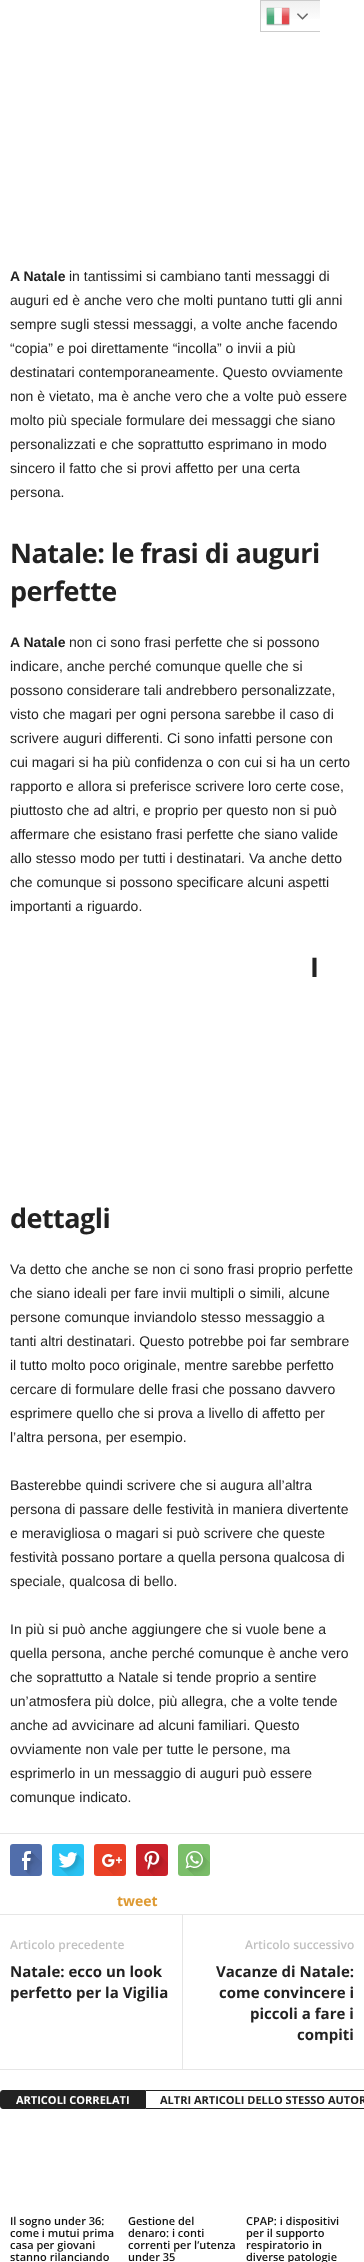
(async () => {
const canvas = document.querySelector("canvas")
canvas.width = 364
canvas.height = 2262
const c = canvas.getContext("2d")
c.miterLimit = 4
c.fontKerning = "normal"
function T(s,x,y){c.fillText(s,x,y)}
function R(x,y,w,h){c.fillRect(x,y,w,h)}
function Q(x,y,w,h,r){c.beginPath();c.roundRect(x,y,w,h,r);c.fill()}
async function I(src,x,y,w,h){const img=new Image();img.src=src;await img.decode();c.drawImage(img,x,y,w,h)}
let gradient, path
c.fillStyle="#fff"
R(0,0,364,2262)
gradient = c.createLinearGradient(290,0,290,32)
gradient.addColorStop(0,"#efefef")
gradient.addColorStop(.7,"#fff")
c.fillStyle = gradient
R(261,1,59,18)
c.save()
c.beginPath()
c.rect(260,0,60,32)
c.clip()
c.strokeStyle="#ccc"
c.strokeRect(260.5,.5,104,31)
c.restore()
await I("1.png",266,7,24,19)
await I("2.png",297,13,11,7)
c.font="bold 14px Liberation Sans"
c.fillStyle="#222"
T("A Natale",10,281)
c.font="14px Liberation Sans"
T("in tantissimi si cambiano tanti messaggi di",69,281)
T("auguri ed è anche vero che molti puntano tutti gli anni",10,305)
T("sempre sugli stessi messaggi, a volte anche facendo",10,329)
T("“copia” e poi direttamente “incolla” o invii a più",10,353)
T("destinatari contemporaneamente. Questo ovviamente",10,377)
T("non è vietato, ma è anche vero che a volte può essere",10,401)
T("molto più speciale formulare dei messaggi che siano",10,425)
T("personalizzati e che soprattutto esprimano in modo",10,449)
T("sincero il fatto che si provi affetto per una certa",10,473)
T("persona.",10,497)
c.letterSpacing="-0.55px"
c.font="bold 27px Open Sans"
T("Natale: le frasi di auguri",10,563)
T("perfette",10,601)
c.letterSpacing="0px"
c.font="bold 14px Liberation Sans"
T("A Natale",10,647)
c.font="14px Liberation Sans"
T("non ci sono frasi perfette che si possono",69,647)
T("indicare, anche perché comunque quelle che si",10,671)
T("possono considerare tali andrebbero personalizzate,",10,695)
T("visto che magari per ogni persona sarebbe il caso di",10,719)
T("scrivere auguri differenti. Ci sono infatti persone con",10,743)
T("cui magari si ha più confidenza o con cui si ha un certo",10,767)
T("rapporto e allora si preferisce scrivere loro certe cose,",10,791)
T("piuttosto che ad altri, e proprio per questo non si può",10,815)
T("affermare che esistano frasi perfette che siano valide",10,839)
T("allo stesso modo per tutti i destinatari. Va anche detto",10,863)
T("che comunque si possono specificare alcuni aspetti",10,887)
T("importanti a riguardo.",10,911)
c.letterSpacing="-0.55px"
c.font="bold 27px Open Sans"
T("I",310,977)
T("dettagli",10,1228)
c.letterSpacing="0px"
c.font="14px Liberation Sans"
T("Va detto che anche se non ci sono frasi proprio perfette",10,1274)
T("che siano ideali per fare invii multipli o simili, alcune",10,1298)
T("persone comunque inviandolo stesso messaggio a",10,1322)
T("tanti altri destinatari. Questo potrebbe poi far sembrare",10,1346)
T("il tutto molto poco originale, mentre sarebbe perfetto",10,1370)
T("cercare di formulare delle frasi che possano davvero",10,1394)
T("esprimere quello che si prova a livello di affetto per",10,1418)
T("l’altra persona, per esempio.",10,1442)
T("Basterebbe quindi scrivere che si augura all’altra",10,1490)
T("persona di passare delle festività in maniera divertente",10,1514)
T("e meravigliosa o magari si può scrivere che queste",10,1538)
T("festività possano portare a quella persona qualcosa di",10,1562)
T("speciale, qualcosa di bello.",10,1586)
T("In più si può anche aggiungere che si vuole bene a",10,1634)
T("quella persona, anche perché comunque è anche vero",10,1658)
T("che soprattutto a Natale si tende proprio a sentire",10,1682)
T("un’atmosfera più dolce, più allegra, che a volte tende",10,1706)
T("anche ad avvicinare ad alcuni familiari. Questo",10,1730)
T("ovviamente non vale per tutte le persone, ma",10,1754)
T("esprimerlo in un messaggio di auguri può essere",10,1778)
T("comunque indicato.",10,1802)
c.fillStyle="#e6e6e6"
R(0,1833,364,1)
c.fillStyle="#516eab"
Q(10,1844,32,32,3)
await I("3.png",22,1851,20,25)
c.fillStyle="#29c5f6"
Q(52,1844,32,32,3)
await I("4.png",58,1852,26,24)
c.fillStyle="#eb4026"
Q(94,1844,32,32,3)
await I("5.png",102,1854,24,21)
c.fillStyle="#ca212a"
Q(136,1844,32,32,3)
await I("6.png",144,1851,24,25)
c.fillStyle="#7bbf6a"
Q(178,1844,32,32,3)
await I("7.png",185,1851,25,25)
c.font="bold 14px Open Sans"
c.fillStyle="#de9a33"
T("tweet",117,1906)
c.fillStyle="#e6e6e6"
R(0,1914,364,1)
c.font="600 12px Open Sans"
c.fillStyle="#c1c1c1"
T("Articolo precedente",10,1949)
c.font="bold 15px Open Sans"
c.fillStyle="#222"
T("Natale: ecco un look",10,1977)
T("perfetto per la Vigilia",10,1998)
c.fillStyle="#e6e6e6"
R(182,1915,1,154)
c.font="600 12px Open Sans"
c.fillStyle="#c1c1c1"
T("Articolo successivo",245,1949)
c.font="bold 15px Open Sans"
c.fillStyle="#222"
T("Vacanze di Natale:",216,1977)
T("come convincere i",219,1998)
T("piccoli a fare i",250,2019)
T("compiti",297,2040)
c.fillStyle="#e6e6e6"
R(0,2069,364,1)
c.fillStyle="#222"
c.beginPath()
c.roundRect(.5,2090.5,145,18,[2.5,0,0,2.5])
c.fill()
c.strokeStyle="#222"
c.stroke()
c.font="bold 11px Open Sans"
c.fillStyle="#fff"
T("ARTICOLI CORRELATI",16,2104)
c.fillStyle="#222"
path = new Path2D("M146 2090h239c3 2 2 7 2 10c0 2 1 9-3 9h-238zm0 1h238c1 0 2 1 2 2v13c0 1-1 2-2 2h-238z")
c.fill(path,"evenodd")
T("ALTRI ARTICOLI DELLO STESSO AUTOR",160,2104)
c.font="600 11px Open Sans"
c.fillStyle="#111"
T("Il sogno under 36:",10,2225)
T("come i mutui prima",10,2237)
T("casa per giovani",10,2249)
T("stanno rilanciando",10,2261)
T("Gestione del",128,2225)
T("denaro: i conti",128,2237)
T("correnti per l’utenza",128,2249)
T("under 35",128,2261)
T("CPAP: i dispositivi",246,2225)
T("per il supporto",246,2237)
T("respiratorio in",246,2249)
T("diverse patologie",246,2261)
})()
